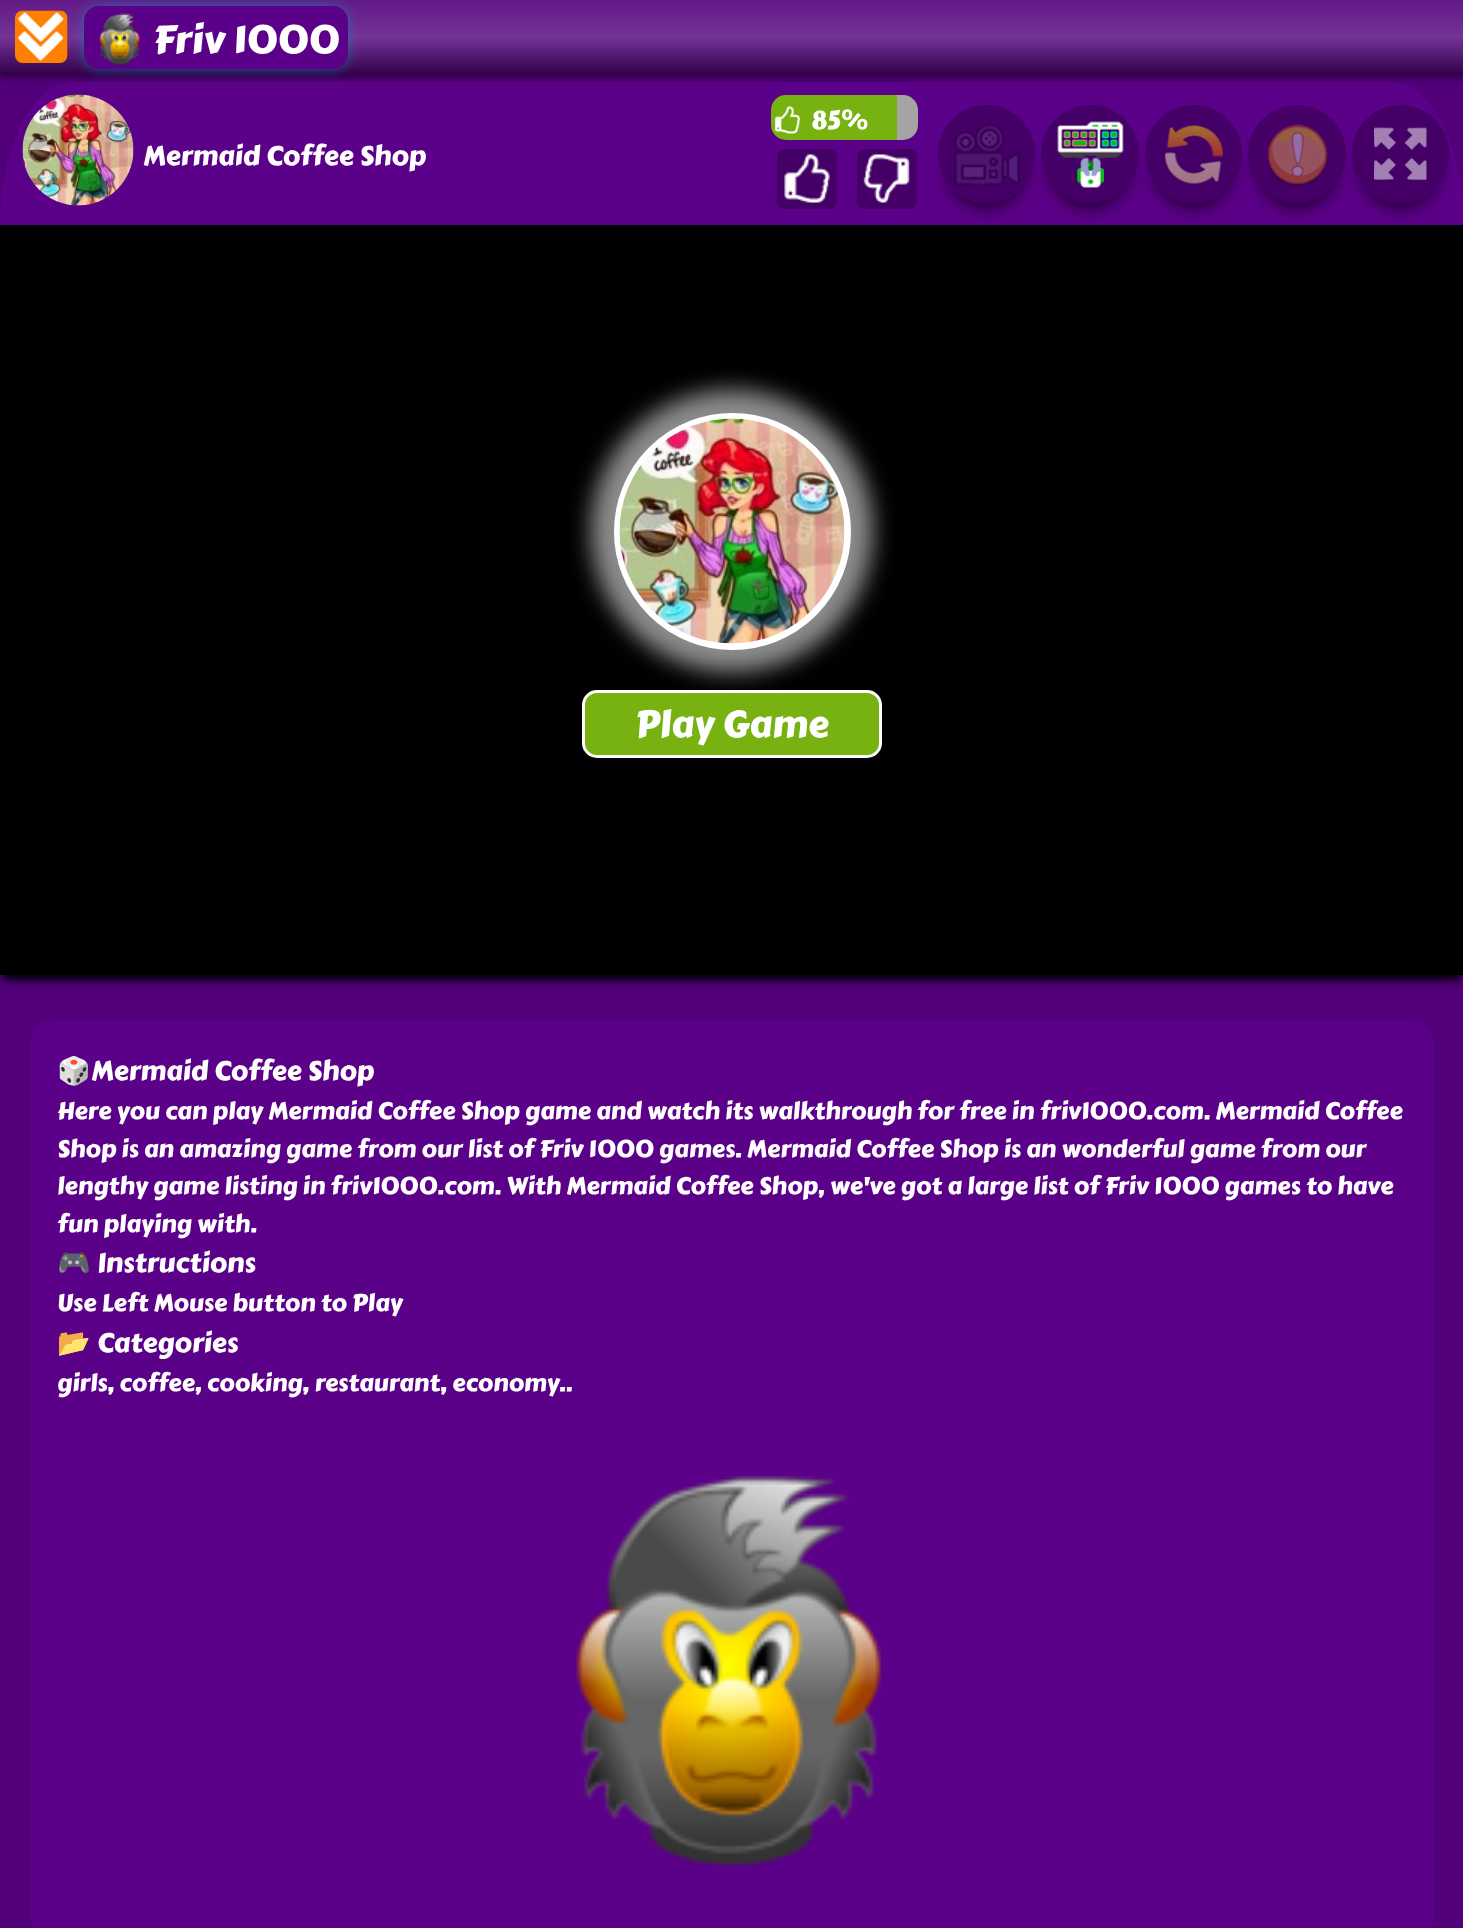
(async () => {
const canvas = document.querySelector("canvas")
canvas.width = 1463
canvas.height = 1928
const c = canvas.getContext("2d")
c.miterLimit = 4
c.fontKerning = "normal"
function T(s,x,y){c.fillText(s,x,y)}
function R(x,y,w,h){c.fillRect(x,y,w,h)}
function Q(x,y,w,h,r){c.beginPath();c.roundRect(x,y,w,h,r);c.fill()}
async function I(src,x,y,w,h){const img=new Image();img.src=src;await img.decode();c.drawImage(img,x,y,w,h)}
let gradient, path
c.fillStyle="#51007a"
R(0,0,1463,1928)
c.fillStyle="#00000066"
c.filter="blur(3px)"
c.beginPath()
c.rect(0,3,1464,75)
c.fill()
c.filter="none"
gradient = c.createLinearGradient(732,0,732,75)
gradient.addColorStop(0,"#621a87")
gradient.addColorStop(.5,"#743395")
gradient.addColorStop(1,"#310049")
c.fillStyle = gradient
R(0,0,1463,75)
await I("1.png",15,10,53,53)
c.fillStyle="#0092bf99"
c.filter="blur(6px)"
c.beginPath()
c.roundRect(84,6,264,63,15)
c.fill()
c.filter="none"
c.fillStyle="#5b0088"
c.beginPath()
c.roundRect(85,7,262,61,14)
c.fill()
c.strokeStyle="#5b0088"
c.lineWidth=2
c.stroke()
await I("2.png",98,13,42,54)
c.font="39px Carter One"
c.fillStyle="#fff"
T("Friv 1000",153,53)
c.fillStyle="#5b0088"
path = new Path2D("M73 82h1318c40 0 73 64 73 143h-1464c0-79 33-143 73-143z")
c.fill(path)
await I("3.png",22,94,112,112)
c.fillStyle="#77b211"
c.beginPath()
c.roundRect(771,95,126,45,[15,0,0,15])
c.fill()
await I("4.png",774,106,27,28)
c.font="25.5px Carter One"
c.fillStyle="#fff"
T("85%",811,129)
c.fillStyle="#a4a4a4"
c.beginPath()
c.roundRect(897,95,21,45,[0,15,15,0])
c.fill()
c.fillStyle="#406"
Q(777,149,60,60,8)
await I("5.png",784,154,46,49)
Q(857,149,60,60,8)
await I("6.png",863,154,47,49)
c.save()
path = new Path2D("M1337 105h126v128h-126zm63.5 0c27 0 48.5 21.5 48.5 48.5v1c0 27-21.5 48.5-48.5 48.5c-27 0-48.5-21.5-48.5-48.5v-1c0-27 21.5-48.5 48.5-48.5z")
c.clip(path,"evenodd")
c.fillStyle="#00000099"
c.filter="blur(7.5px)"
c.beginPath()
c.roundRect(1361,129,79,80,39.5)
c.fill()
c.filter="none"
c.restore()
c.fillStyle="#00000040"
Q(1352,105,97,98,48.5)
c.save()
path = new Path2D("M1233 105h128v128h-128zm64 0c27 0 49 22 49 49c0 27-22 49-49 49c-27 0-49-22-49-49c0-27 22-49 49-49z")
c.clip(path,"evenodd")
c.fillStyle="#00000099"
c.filter="blur(7.5px)"
c.beginPath()
c.roundRect(1257,129,80,80,40)
c.fill()
c.filter="none"
c.restore()
c.beginPath()
c.arc(1297,154,49,0,7)
c.fill()
c.save()
path = new Path2D("M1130 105h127v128h-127zm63.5 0c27 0 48.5 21.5 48.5 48.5v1c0 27-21.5 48.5-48.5 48.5c-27 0-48.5-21.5-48.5-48.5v-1c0-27 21.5-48.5 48.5-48.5z")
c.clip(path,"evenodd")
c.fillStyle="#00000099"
c.filter="blur(7.5px)"
c.beginPath()
c.roundRect(1154,129,79,80,39.5)
c.fill()
c.filter="none"
c.restore()
Q(1145,105,97,98,48.5)
c.save()
path = new Path2D("M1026 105h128v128h-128zm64 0c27 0 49 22 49 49c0 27-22 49-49 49c-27 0-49-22-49-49c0-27 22-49 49-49z")
c.clip(path,"evenodd")
c.fillStyle="#00000099"
c.filter="blur(7.5px)"
c.beginPath()
c.roundRect(1050,129,80,80,40)
c.fill()
c.filter="none"
c.restore()
c.beginPath()
c.arc(1090,154,49,0,7)
c.fill()
c.save()
path = new Path2D("M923 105h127v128h-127zm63.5 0c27 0 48.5 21.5 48.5 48.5v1c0 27-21.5 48.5-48.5 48.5c-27 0-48.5-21.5-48.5-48.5v-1c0-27 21.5-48.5 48.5-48.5z")
c.clip(path,"evenodd")
c.fillStyle="#00000099"
c.filter="blur(7.5px)"
c.beginPath()
c.roundRect(947,129,79,80,39.5)
c.fill()
c.filter="none"
c.restore()
Q(938,105,97,98,48.5)
await I("7.png",954,123,66,63)
await I("8.png",1057,121,67,67)
await I("9.png",1165,125,58,59)
await I("10.png",1267,124,61,63)
await I("11.png",1374,127,53,53)
c.font="27px Carter One"
c.fillStyle="#fff"
T("Mermaid Coffee Shop",143,165)
c.fillStyle="#000"
c.filter="blur(4px)"
c.beginPath()
c.rect(3,236,1458,744)
c.fill()
c.filter="none"
R(0,225,1463,750)
c.fillStyle="#ffffff8c"
c.filter="blur(11px)"
c.beginPath()
c.roundRect(591,390,282,282,141)
c.fill()
c.filter="none"
c.fillStyle="#fff"
c.beginPath()
c.arc(732.5,531.5,115.5,0,7)
c.fill()
c.strokeStyle="#fff"
c.lineWidth=6
c.stroke()
await I("12.png",619,418,226,226)
c.fillStyle="#77b211"
c.beginPath()
c.roundRect(583.5,691.5,297,65,13.5)
c.fill()
c.lineWidth=3
c.stroke()
c.font="37.5px Carter One"
c.fillStyle="#fff"
T("Play Game",635,737)
c.fillStyle="#5b0088"
Q(30,1020,1404,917,23)
c.font="27px Noto Color Emoji"
c.fillStyle="#fff"
T("🎲",57,1080)
c.font="27px Carter One"
T("Mermaid Coffee Shop",91,1080)
c.font="24px Carter One"
T("Here you can play Mermaid Coffee Shop game and watch its walkthrough for free in friv1000.com. Mermaid Coffee",57,1119)
T("Shop is an amazing game from our list of Friv 1000 games. Mermaid Coffee Shop is an wonderful game from our",57,1157)
T("lengthy game listing in friv1000.com. With Mermaid Coffee Shop, we've got a large list of Friv 1000 games to have",57,1194)
T("fun playing with.",57,1232)
c.font="27px Noto Color Emoji"
T("🎮",57,1272)
c.font="27px Carter One"
T("Instructions",97,1272)
c.font="24px Carter One"
T("Use Left Mouse button to Play",57,1311)
c.font="27px Noto Color Emoji"
T("📂",57,1352)
c.font="27px Carter One"
T("Categories",97,1352)
c.font="24px Carter One"
T("girls, coffee, cooking, restaurant, economy",57,1391)
T("..",559,1391)
await I("13.png",575,1475,309,393)
})()
